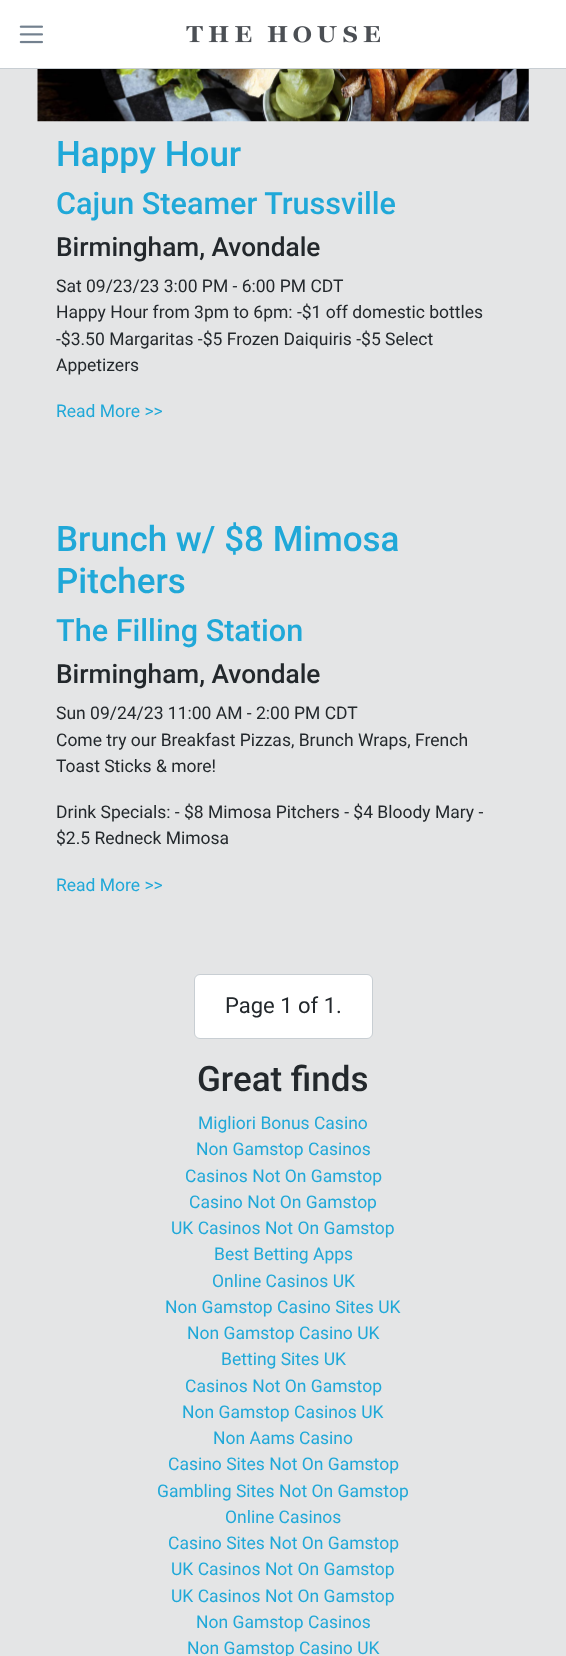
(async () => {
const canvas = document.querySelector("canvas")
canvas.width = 566
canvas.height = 1656
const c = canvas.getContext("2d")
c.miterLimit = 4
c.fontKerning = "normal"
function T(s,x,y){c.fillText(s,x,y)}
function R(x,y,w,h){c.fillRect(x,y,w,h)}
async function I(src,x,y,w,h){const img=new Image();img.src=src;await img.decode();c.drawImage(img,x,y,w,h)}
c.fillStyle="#e4e5e6"
R(0,0,566,1656)
c.fillStyle="#fff"
R(0,0,566,68)
c.fillStyle="#c8ced3"
R(0,68,566,1)
await I("1.png",19,25,24,19)
await I("2.png",186,26,194,17)
await I("3.png",37,69,492,53)
c.font="500 35px Roboto"
c.fillStyle="#20a8d8"
T("Happy Hour",56,166)
c.font="500 30.6px Roboto"
T("Cajun Steamer Trussville",56,214)
c.font="500 26.25px Roboto"
c.fillStyle="#23282c"
T("Birmingham, Avondale",56,256)
c.font="17.5px Roboto"
T("Sat 09/23/23 3:00 PM - 6:00 PM CDT",56,292)
T("Happy Hour from 3pm to 6pm: -$1 off domestic bottles",56,318)
T("-$3.50 Margaritas -$5 Frozen Daiquiris -$5 Select",56,345)
T("Appetizers",56,371)
c.fillStyle="#20a8d8"
T("Read More >>",56,417)
c.font="500 35px Roboto"
T("Brunch w/ $8 Mimosa",56,551)
T("Pitchers",56,593)
c.font="500 30.6px Roboto"
T("The Filling Station",56,641)
c.font="500 26.25px Roboto"
c.fillStyle="#23282c"
T("Birmingham, Avondale",56,683)
c.font="17.5px Roboto"
T("Sun 09/24/23 11:00 AM - 2:00 PM CDT",56,719)
T("Come try our Breakfast Pizzas, Brunch Wraps, French",56,746)
T("Toast Sticks & more!",56,772)
T("Drink Specials: - $8 Mimosa Pitchers - $4 Bloody Mary -",56,818)
T("$2.5 Redneck Mimosa",56,844)
c.fillStyle="#20a8d8"
T("Read More >>",56,891)
c.fillStyle="#fff"
c.beginPath()
c.roundRect(194.5,974.5,178,64,5.5)
c.fill()
c.strokeStyle="#c8ced3"
c.stroke()
c.font="22px Roboto"
c.fillStyle="#23282c"
T("Page 1 of 1.",225,1013)
c.font="500 35px Roboto"
T("Great finds",197,1091)
c.font="17.5px Roboto"
c.fillStyle="#20a8d8"
T("Migliori Bonus Casino",198,1129)
T("Non Gamstop Casinos",196,1155)
T("Casinos Not On Gamstop",185,1182)
T("Casino Not On Gamstop",189,1208)
T("UK Casinos Not On Gamstop",171,1234)
T("Best Betting Apps",214,1260)
T("Online Casinos UK",212,1287)
T("Non Gamstop Casino Sites UK",165,1313)
T("Non Gamstop Casino UK",187,1339)
T("Betting Sites UK",221,1365)
T("Casinos Not On Gamstop",185,1392)
T("Non Gamstop Casinos UK",182,1418)
T("Non Aams Casino",213,1444)
T("Casino Sites Not On Gamstop",168,1470)
T("Gambling Sites Not On Gamstop",157,1497)
T("Online Casinos",225,1523)
T("Casino Sites Not On Gamstop",168,1549)
T("UK Casinos Not On Gamstop",171,1575)
T("UK Casinos Not On Gamstop",171,1602)
T("Non Gamstop Casinos",196,1628)
T("Non Gamstop Casino UK",187,1654)
})()
